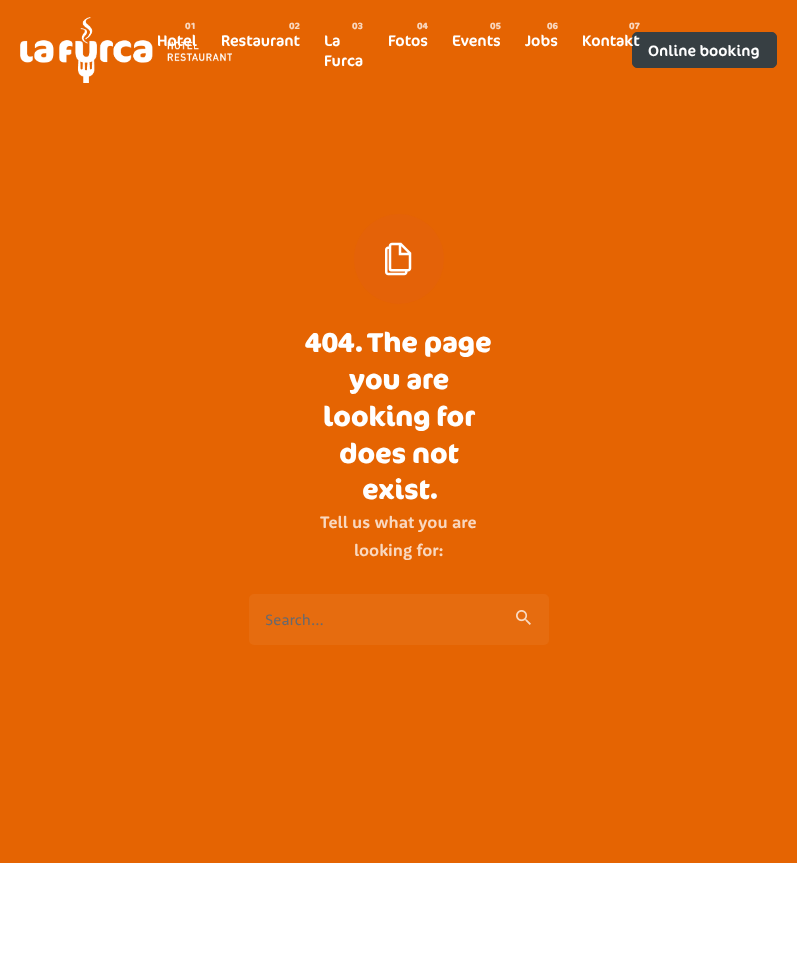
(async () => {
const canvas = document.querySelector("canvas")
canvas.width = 797
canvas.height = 970
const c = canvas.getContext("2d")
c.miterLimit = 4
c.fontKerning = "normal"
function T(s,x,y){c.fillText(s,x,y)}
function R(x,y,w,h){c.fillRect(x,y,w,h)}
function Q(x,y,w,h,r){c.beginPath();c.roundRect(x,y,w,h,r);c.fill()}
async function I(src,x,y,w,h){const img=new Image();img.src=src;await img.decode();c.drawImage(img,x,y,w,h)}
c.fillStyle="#fff"
R(0,0,797,970)
c.fillStyle="#e56402"
R(0,0,797,863)
await I("1.png",20,17,212,66)
c.font="bold 9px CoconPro"
c.fillStyle="#f9d8c0"
T("01",185,29)
c.font="15.5px CoconPro"
c.fillStyle="#fff"
T("Hotel",157,46)
c.font="bold 9px CoconPro"
c.fillStyle="#f9d8c0"
T("02",289,29)
c.font="15.5px CoconPro"
c.fillStyle="#fff"
T("Restaurant",221,46)
c.font="bold 9px CoconPro"
c.fillStyle="#f9d8c0"
T("03",352,29)
c.font="15.5px CoconPro"
c.fillStyle="#fff"
T("La",324,46)
T("Furca",324,66)
c.font="bold 9px CoconPro"
c.fillStyle="#f9d8c0"
T("04",417,29)
c.font="15.5px CoconPro"
c.fillStyle="#fff"
T("Fotos",388,46)
c.font="bold 9px CoconPro"
c.fillStyle="#f9d8c0"
T("05",490,29)
c.font="15.5px CoconPro"
c.fillStyle="#fff"
T("Events",452,46)
c.font="bold 9px CoconPro"
c.fillStyle="#f9d8c0"
T("06",547,29)
c.font="15.5px CoconPro"
c.fillStyle="#fff"
T("Jobs",525,46)
c.font="bold 9px CoconPro"
c.fillStyle="#f9d8c0"
T("07",629,29)
c.fillStyle="#373f43"
c.beginPath()
c.roundRect(632.5,32.5,144,35,4.5)
c.fill()
c.strokeStyle="#373f43"
c.stroke()
c.font="15.5px CoconPro"
c.fillStyle="#fff"
T("Kontakt",582,46)
c.font="15.25px CoconPro"
T("Online booking",648,56)
c.fillStyle="#e46208"
c.beginPath()
c.arc(399,259,45,0,7)
c.fill()
await I("2.png",385,242,27,34)
c.letterSpacing="-0.25px"
c.font="bold 27.25px CoconPro"
c.fillStyle="#fff"
T("404. The page",305,352)
T("you are",349,389)
T("looking for",323,426)
T("does not",339,463)
T("exist.",362,499)
c.letterSpacing="0px"
c.font="bold 17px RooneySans"
c.fillStyle="#f9d8c0"
T("Tell us what you are",320,528)
T("looking for:",354,556)
c.fillStyle="#e66c0f"
Q(249,594,300,51,5)
c.font="15.5px RooneySans"
c.fillStyle="#6a696c"
T("Search...",265,625)
await I("3.png",516,610,15,15)
})()
